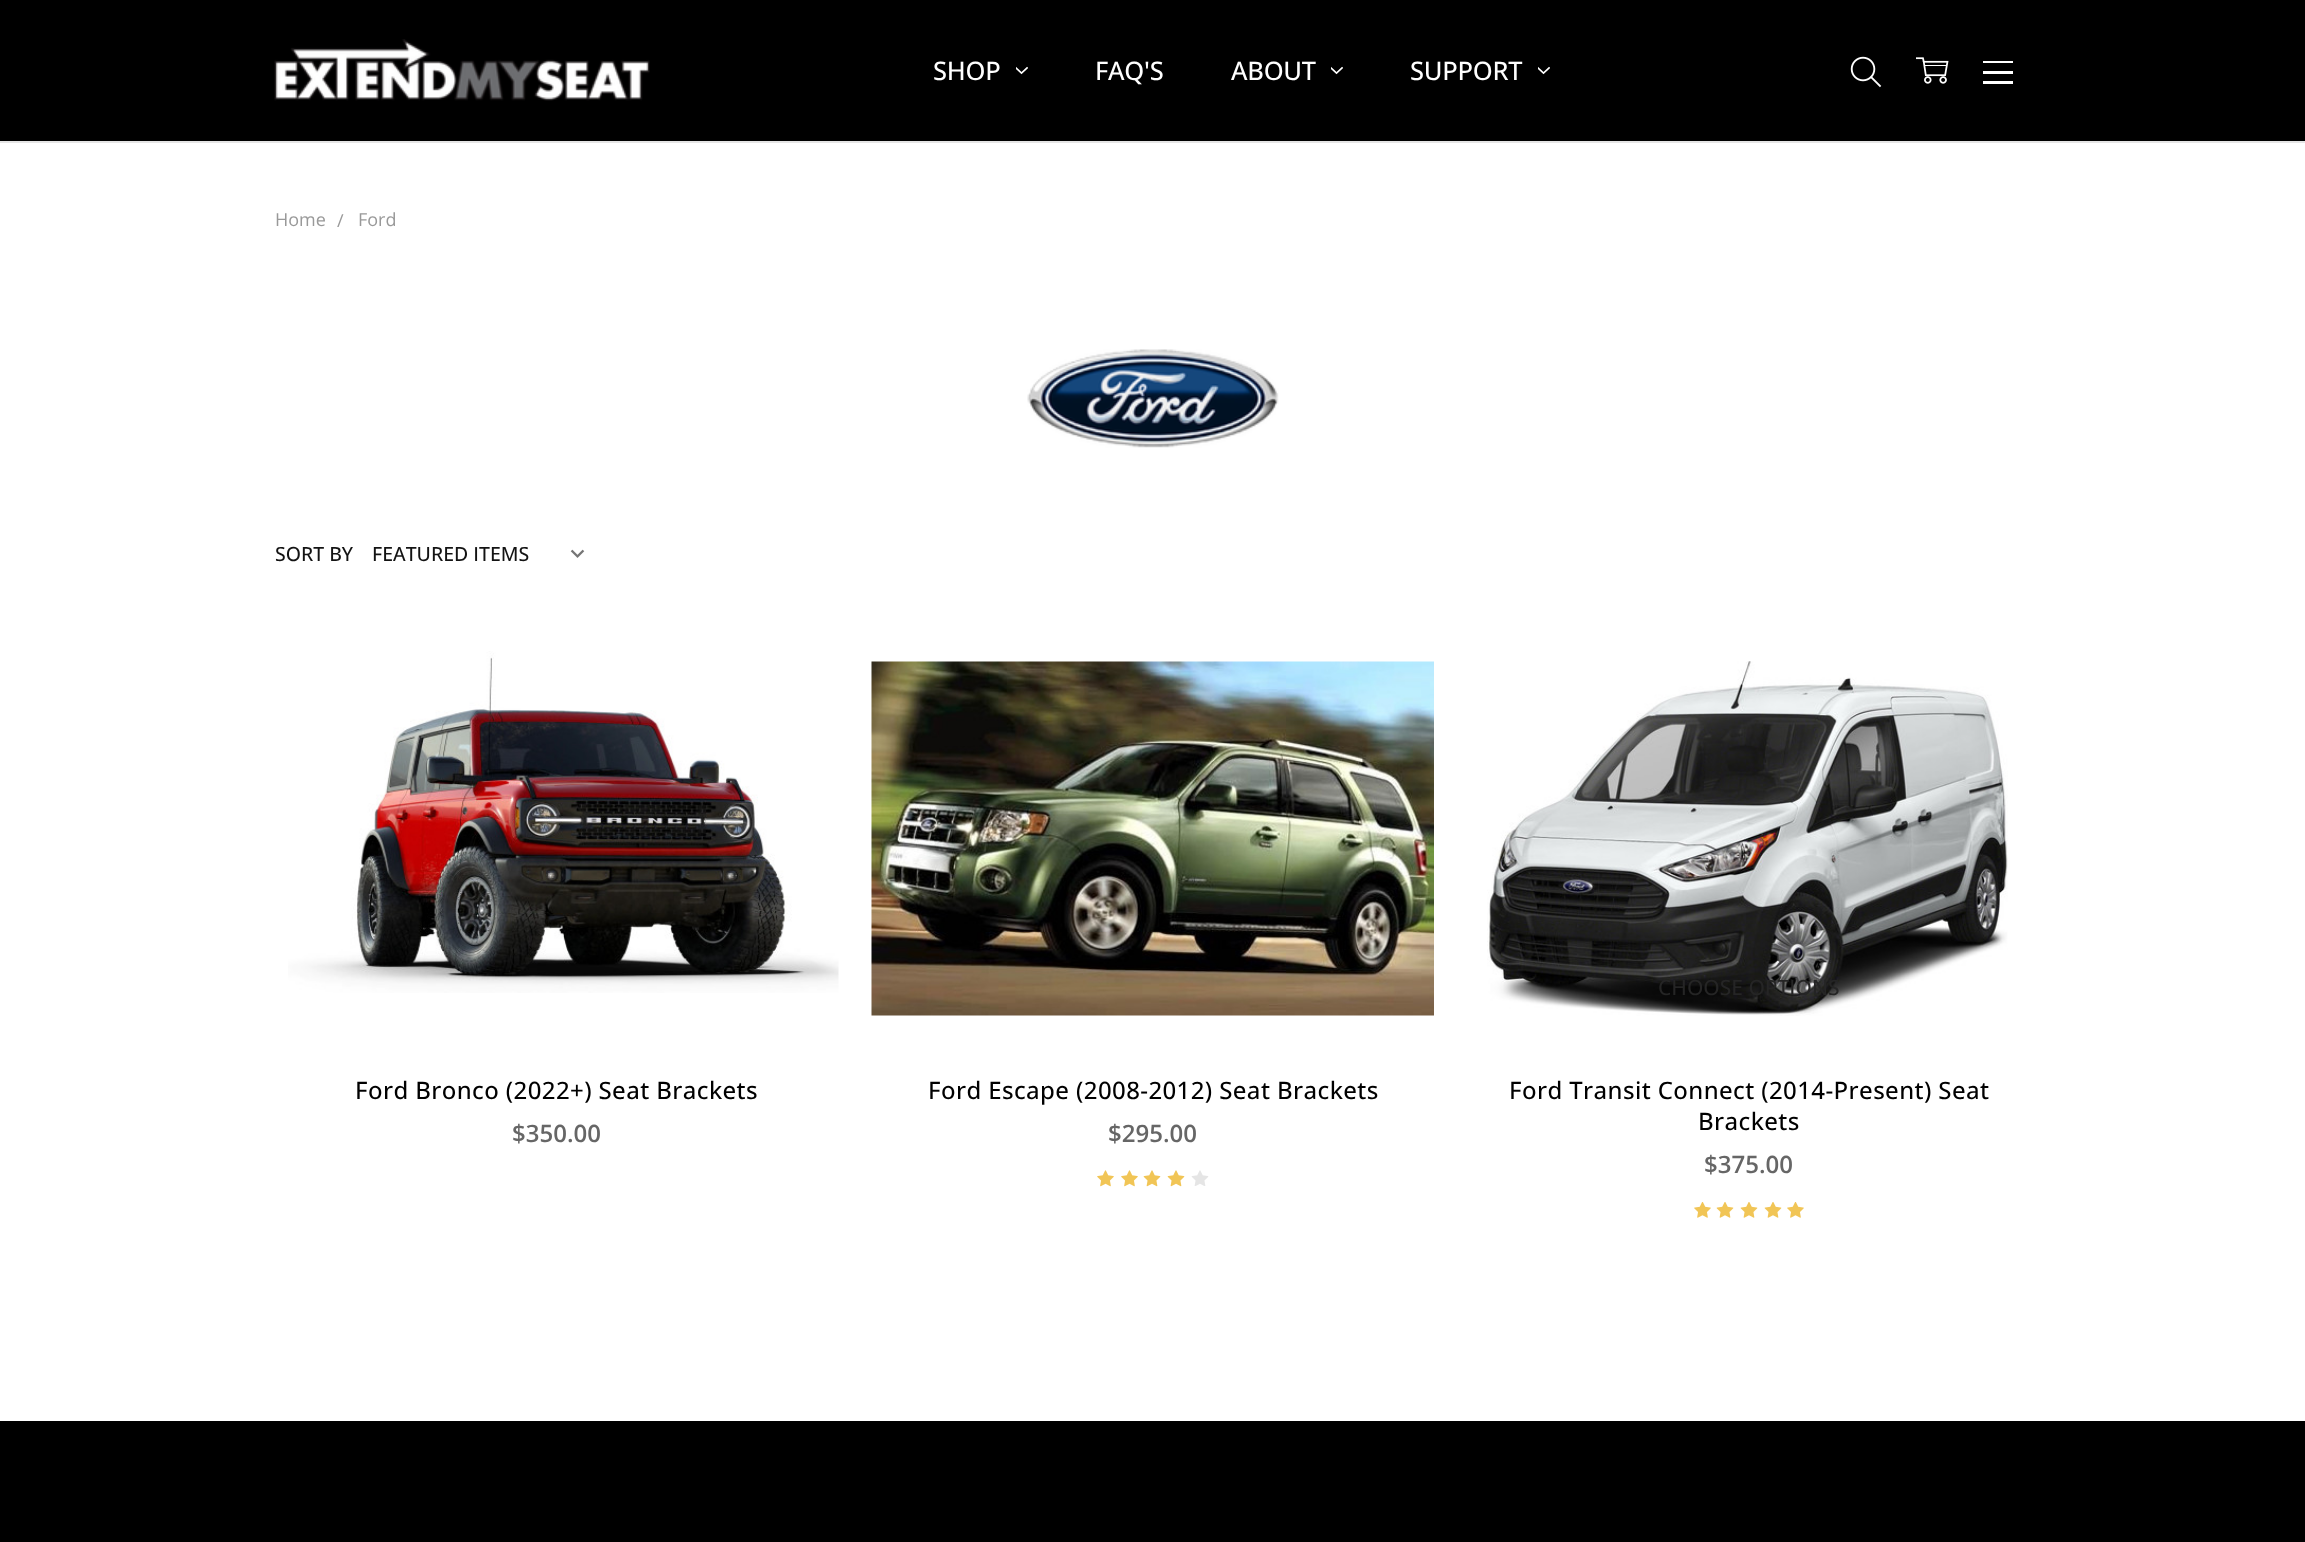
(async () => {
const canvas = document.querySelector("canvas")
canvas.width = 2305
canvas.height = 1542
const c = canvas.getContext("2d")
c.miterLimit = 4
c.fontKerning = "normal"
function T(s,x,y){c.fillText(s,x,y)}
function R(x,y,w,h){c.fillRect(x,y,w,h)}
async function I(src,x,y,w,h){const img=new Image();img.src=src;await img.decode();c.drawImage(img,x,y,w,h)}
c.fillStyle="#fff"
R(0,0,2305,1542)
c.fillStyle="#000"
R(0,0,2305,141)
c.fillStyle="#e5e5e5"
R(0,141,2305,2)
await I("1.png",274,39,376,62)
c.letterSpacing="-0.25px"
c.font="500 25.5px Open Sans"
c.fillStyle="#fff"
T("SHOP",933,80)
await I("2.png",1016,66,12,9)
T("FAQ'S",1095,80)
T("ABOUT",1231,80)
await I("2.png",1331,66,12,9)
T("SUPPORT",1410,80)
await I("2.png",1538,66,12,9)
await I("3.png",1850,56,32,32)
await I("4.png",1916,57,33,27)
R(1983,61,30,2)
R(1983,71,30,3)
R(1983,81,30,3)
c.letterSpacing="0px"
c.font="18px Open Sans"
c.fillStyle="#999"
T("Home",275,226)
T("/",337,227)
T("Ford",358,226)
await I("5.png",1027,349,252,99)
c.font="500 19.5px Open Sans"
c.fillStyle="#131313"
T("SORT BY",275,561)
await I("6.png",570,549,15,9)
T("FEATURED ITEMS",372,561)
await I("7.png",288,651,551,342)
c.letterSpacing="0.4px"
c.font="500 24px Open Sans"
c.fillStyle="#000"
T("Ford Bronco (2022+) Seat Brackets",355,1099)
c.letterSpacing="0px"
c.font="600 24px Open Sans"
c.fillStyle="#666"
T("$350.00",512,1142)
await I("8.png",871,661,563,355)
c.letterSpacing="0.4px"
c.font="500 24px Open Sans"
c.fillStyle="#000"
T("Ford Escape (2008-2012) Seat Brackets",928,1099)
c.letterSpacing="0px"
c.font="600 24px Open Sans"
c.fillStyle="#666"
T("$295.00",1108,1142)
await I("9.png",1097,1170,17,17)
await I("9.png",1121,1170,17,17)
await I("10.png",1143,1170,18,17)
await I("10.png",1167,1170,18,17)
await I("11.png",1191,1170,18,16)
await I("12.png",1487,661,521,355)
c.font="500 21px Open Sans"
c.fillStyle="#252525"
T("CHOOSE OPTIONS",1658,995)
c.letterSpacing="0.4px"
c.font="500 24px Open Sans"
c.fillStyle="#000"
T("Ford Transit Connect (2014-Present) Seat",1509,1099)
T("Brackets",1698,1130)
c.letterSpacing="0px"
c.font="600 24px Open Sans"
c.fillStyle="#666"
T("$375.00",1704,1173)
await I("13.png",1694,1202,17,16)
await I("14.png",1716,1202,18,16)
await I("14.png",1740,1202,18,16)
await I("14.png",1764,1202,18,16)
await I("13.png",1787,1202,17,16)
c.fillStyle="#000"
R(0,1421,2305,121)
})()
